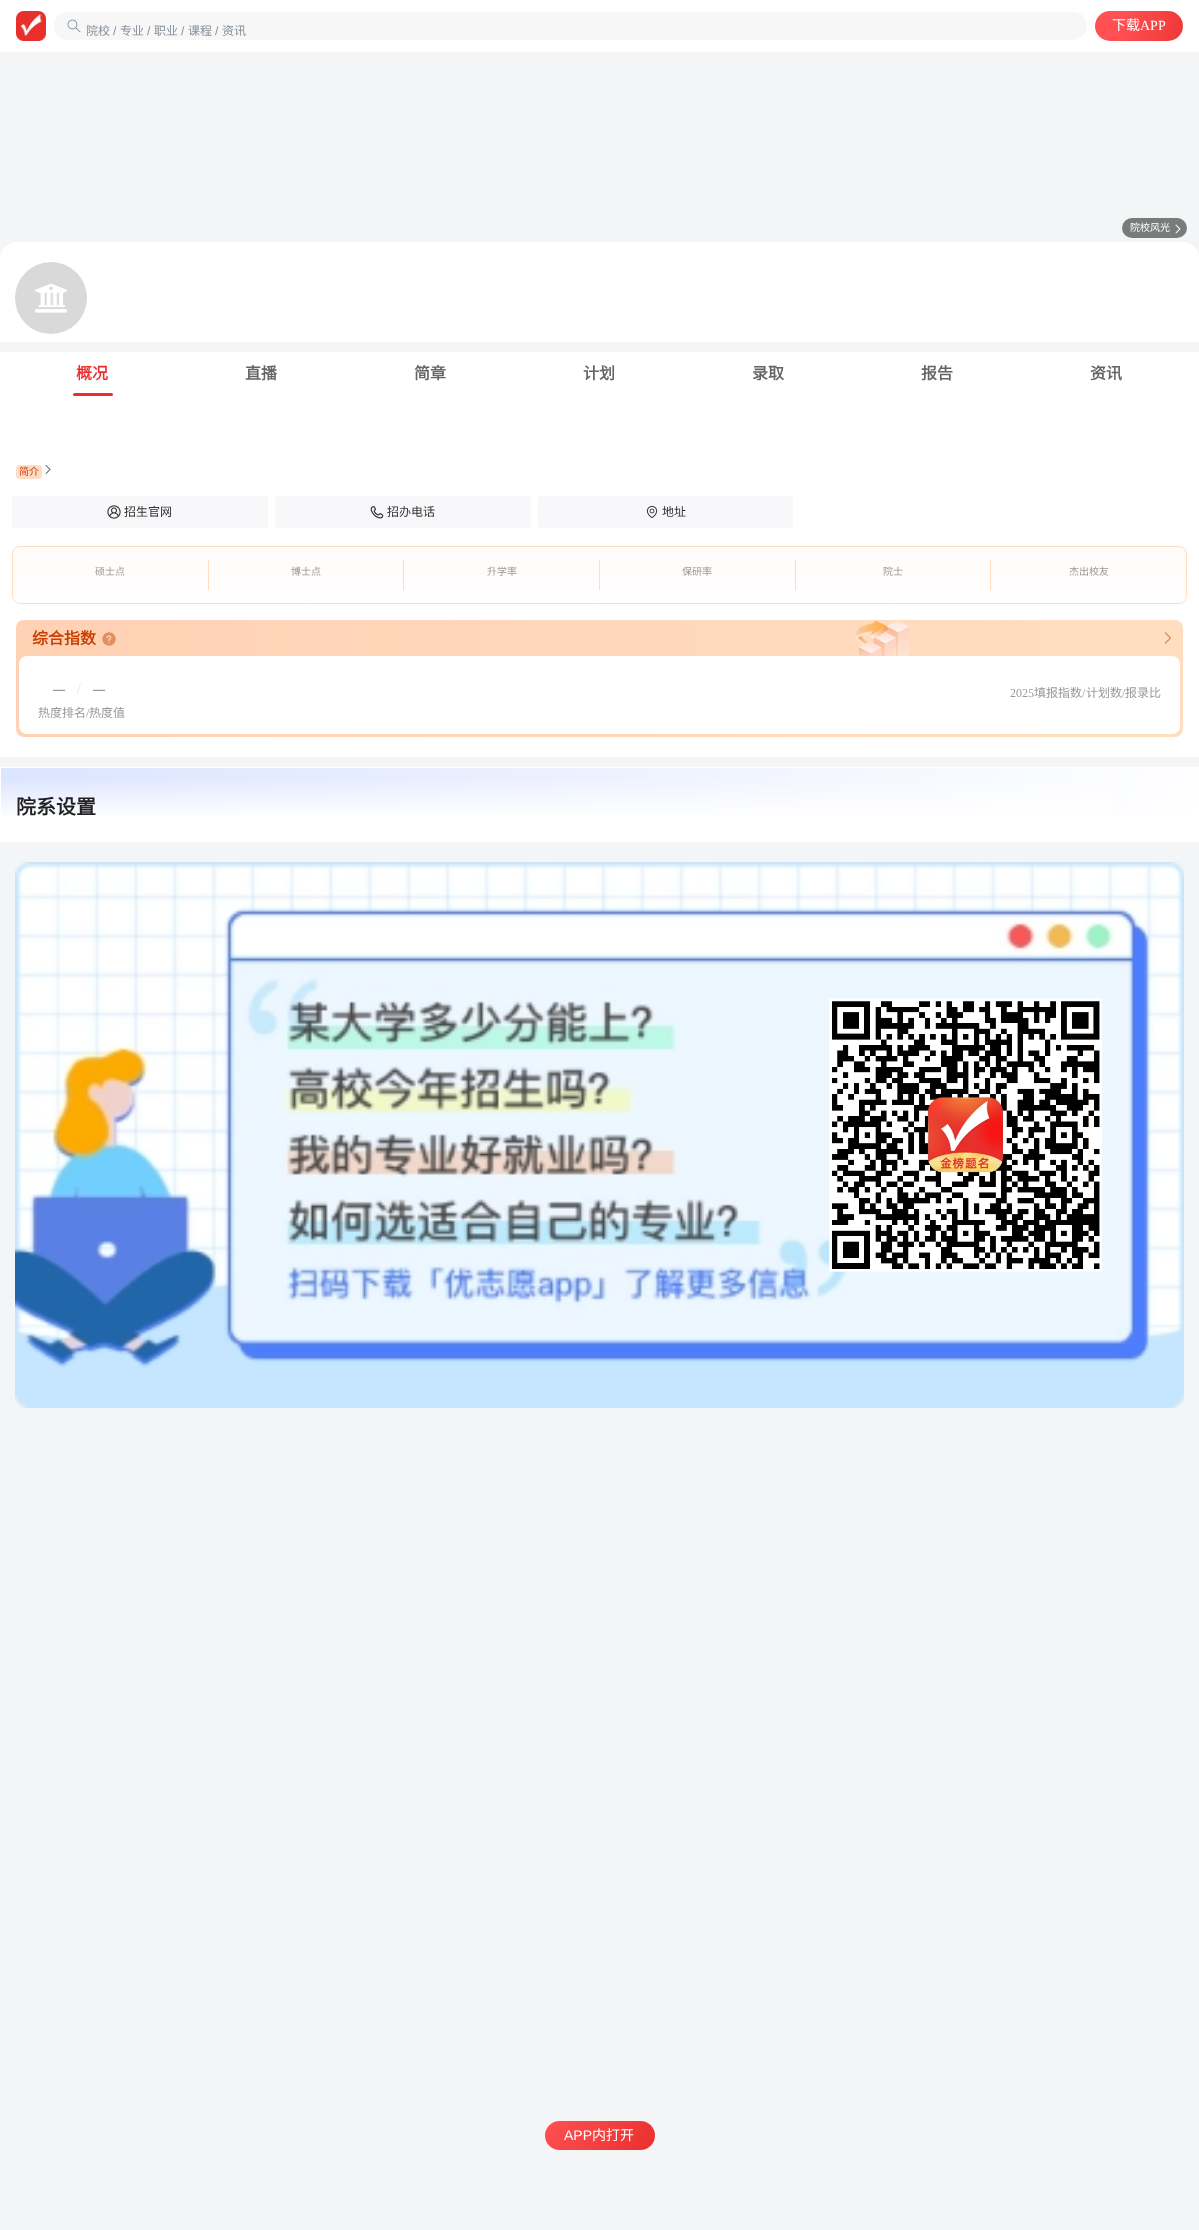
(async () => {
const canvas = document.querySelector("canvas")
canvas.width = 1199
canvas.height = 2230
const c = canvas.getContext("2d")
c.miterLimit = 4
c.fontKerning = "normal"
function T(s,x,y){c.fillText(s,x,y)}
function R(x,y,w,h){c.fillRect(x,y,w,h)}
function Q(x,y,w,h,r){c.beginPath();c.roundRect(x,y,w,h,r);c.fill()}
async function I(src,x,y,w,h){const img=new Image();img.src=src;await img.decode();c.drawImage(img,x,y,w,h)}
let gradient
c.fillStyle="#f4f5f6"
R(0,0,1199,2230)
c.fillStyle="#fff"
R(0,0,1199,52)
await I("1.png",16,11,30,30)
c.fillStyle="#f7f7f7"
Q(54,12,1033,28,14)
await I("2.png",67,19,14,14)
c.font="12px Noto Sans CJK SC"
c.fillStyle="#86909c"
T("院校",86,35)
c.font="12px Liberation Sans"
T("/",113,35)
c.font="12px Noto Sans CJK SC"
T("专业",120,35)
c.font="12px Liberation Sans"
T("/",147,35)
c.font="12px Noto Sans CJK SC"
T("职业",154,35)
c.font="12px Liberation Sans"
T("/",181,35)
c.font="12px Noto Sans CJK SC"
T("课程",188,35)
c.font="12px Liberation Sans"
T("/",215,35)
c.font="12px Noto Sans CJK SC"
T("资讯",222,35)
gradient = c.createLinearGradient(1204,43,1094,14)
gradient.addColorStop(0,"#e9302d")
gradient.addColorStop(.75,"#ff5053")
c.fillStyle = gradient
Q(1095,11,88,30,15)
c.font="14px Noto Sans CJK SC"
c.fillStyle="#fff"
T("下载",1112,30)
c.font="14px Liberation Serif"
T("APP",1140,30)
c.fillStyle="#7a7b7b"
Q(1122,218,65,20,10)
c.font="10px Noto Sans CJK SC"
c.fillStyle="#fff"
T("院校风光",1130,231)
await I("3.png",1175,224,6,10)
R(0,282,1199,60)
c.beginPath()
c.roundRect(0,242,1199,40,[16,16,0,0])
c.fill()
await I("4.png",15,262,72,72)
R(0,352,1199,405)
c.font="bold 16px Noto Sans CJK SC"
c.fillStyle="#e9302d"
T("概况",76,379)
c.fillStyle="#646566"
T("直播",245,379)
T("简章",414,379)
T("计划",583,379)
T("录取",752,379)
T("报告",921,379)
T("资讯",1090,379)
c.fillStyle="#e9302d"
Q(73,393,40,3,1.5)
c.fillStyle="#ffdcc5"
Q(16,465,26,14,4)
c.font="10px Noto Sans CJK SC"
c.fillStyle="#c83f00"
T("简介",19,475)
await I("5.png",45,465,6,9)
c.fillStyle="#f8f8fa"
Q(12,496,256,32,4)
await I("6.png",107,505,14,14)
c.font="12px Noto Sans CJK SC"
c.fillStyle="#333"
T("招生官网",124,516)
c.fillStyle="#f8f8fa"
Q(275,496,256,32,4)
await I("7.png",370,506,14,13)
c.fillStyle="#333"
T("招办电话",387,516)
c.fillStyle="#f8f8fa"
Q(538,496,255,32,4)
await I("8.png",646,505,12,13)
c.fillStyle="#333"
T("地址",662,516)
c.save()
c.beginPath()
c.roundRect(12,546,1175,58,8)
c.clip()
gradient = c.createLinearGradient(600,547,600,603)
gradient.addColorStop(0,"#fffbf9")
gradient.addColorStop(1,"#fff")
c.fillStyle = gradient
R(12,547,1175,56)
c.restore()
c.beginPath()
c.roundRect(12.5,546.5,1174,57,7.5)
c.strokeStyle="#ffdebf"
c.stroke()
c.fillStyle="#ffdebf"
R(208,560,1,30)
c.font="10px Noto Sans CJK SC"
c.fillStyle="#999"
T("硕士点",95,575)
c.fillStyle="#ffdebf"
R(403,560,1,30)
c.fillStyle="#999"
T("博士点",291,575)
c.fillStyle="#ffdebf"
R(599,560,1,30)
c.fillStyle="#999"
T("升学率",487,575)
c.fillStyle="#ffdebf"
R(795,560,1,30)
c.fillStyle="#999"
T("保研率",682,575)
c.fillStyle="#ffdebf"
R(990,560,1,30)
c.fillStyle="#999"
T("院士",883,575)
T("杰出校友",1069,575)
gradient = c.createLinearGradient(1183,678,16,679)
gradient.addColorStop(.04,"#ffdec0")
gradient.addColorStop(1,"#ffd1b5")
c.fillStyle = gradient
Q(16,620,1167,117,8)
await I("9.png",855,620,54,36)
c.font="bold 16px Noto Sans CJK SC"
c.fillStyle="#c83f00"
T("综合指数",32,644)
await I("10.png",102,632,14,14)
await I("11.png",1164,632,8,12)
c.fillStyle="#fff"
Q(19,656,1161,78,8)
c.font="12px Liberation Serif"
c.fillStyle="#333"
T("—",53,693)
c.font="14px Liberation Serif"
c.fillStyle="#e5e5e5"
T("/",77,693)
c.font="12px Liberation Serif"
c.fillStyle="#333"
T("—",93,693)
c.font="12px Noto Sans CJK SC"
c.fillStyle="#999"
T("热度排名",38,717)
c.font="12px Liberation Serif"
T("/",86,717)
c.font="12px Noto Sans CJK SC"
T("热度值",89,717)
c.font="12px Liberation Serif"
T("2025",1010,697)
c.font="12px Noto Sans CJK SC"
T("填报指数",1034,697)
c.font="12px Liberation Serif"
T("/",1082,697)
c.font="12px Noto Sans CJK SC"
T("计划数",1086,697)
c.font="12px Liberation Serif"
T("/",1122,697)
c.font="12px Noto Sans CJK SC"
T("报录比",1125,697)
c.fillStyle="#fff"
R(0,817,1199,25)
gradient = c.createLinearGradient(131,533,1068,1051)
gradient.addColorStop(0,"#dce5ff")
gradient.addColorStop(1,"#fff")
c.fillStyle = gradient
R(1,768,1197,48)
c.strokeStyle="#fff"
c.strokeRect(.5,767.5,1198,49)
gradient = c.createLinearGradient(601,818,601,778)
gradient.addColorStop(0,"#fff")
gradient.addColorStop(.99,"#ffffff00")
c.fillStyle = gradient
R(1,781,1111,35)
c.font="bold 20px Noto Sans CJK SC"
c.fillStyle="#212121"
T("院系设置",16,814)
await I("12.png",15,862,1169,546)
await I("13.png",829,998,273,274)
gradient = c.createLinearGradient(642,2167,558,2104)
gradient.addColorStop(0,"#e9302d")
gradient.addColorStop(1,"#ff5053")
c.fillStyle = gradient
Q(545,2121,110,29,14.5)
c.font="14px Liberation Sans"
c.fillStyle="#fff"
T("APP",564,2140)
c.font="14px Noto Sans CJK SC"
T("内打开",592,2140)
})()
